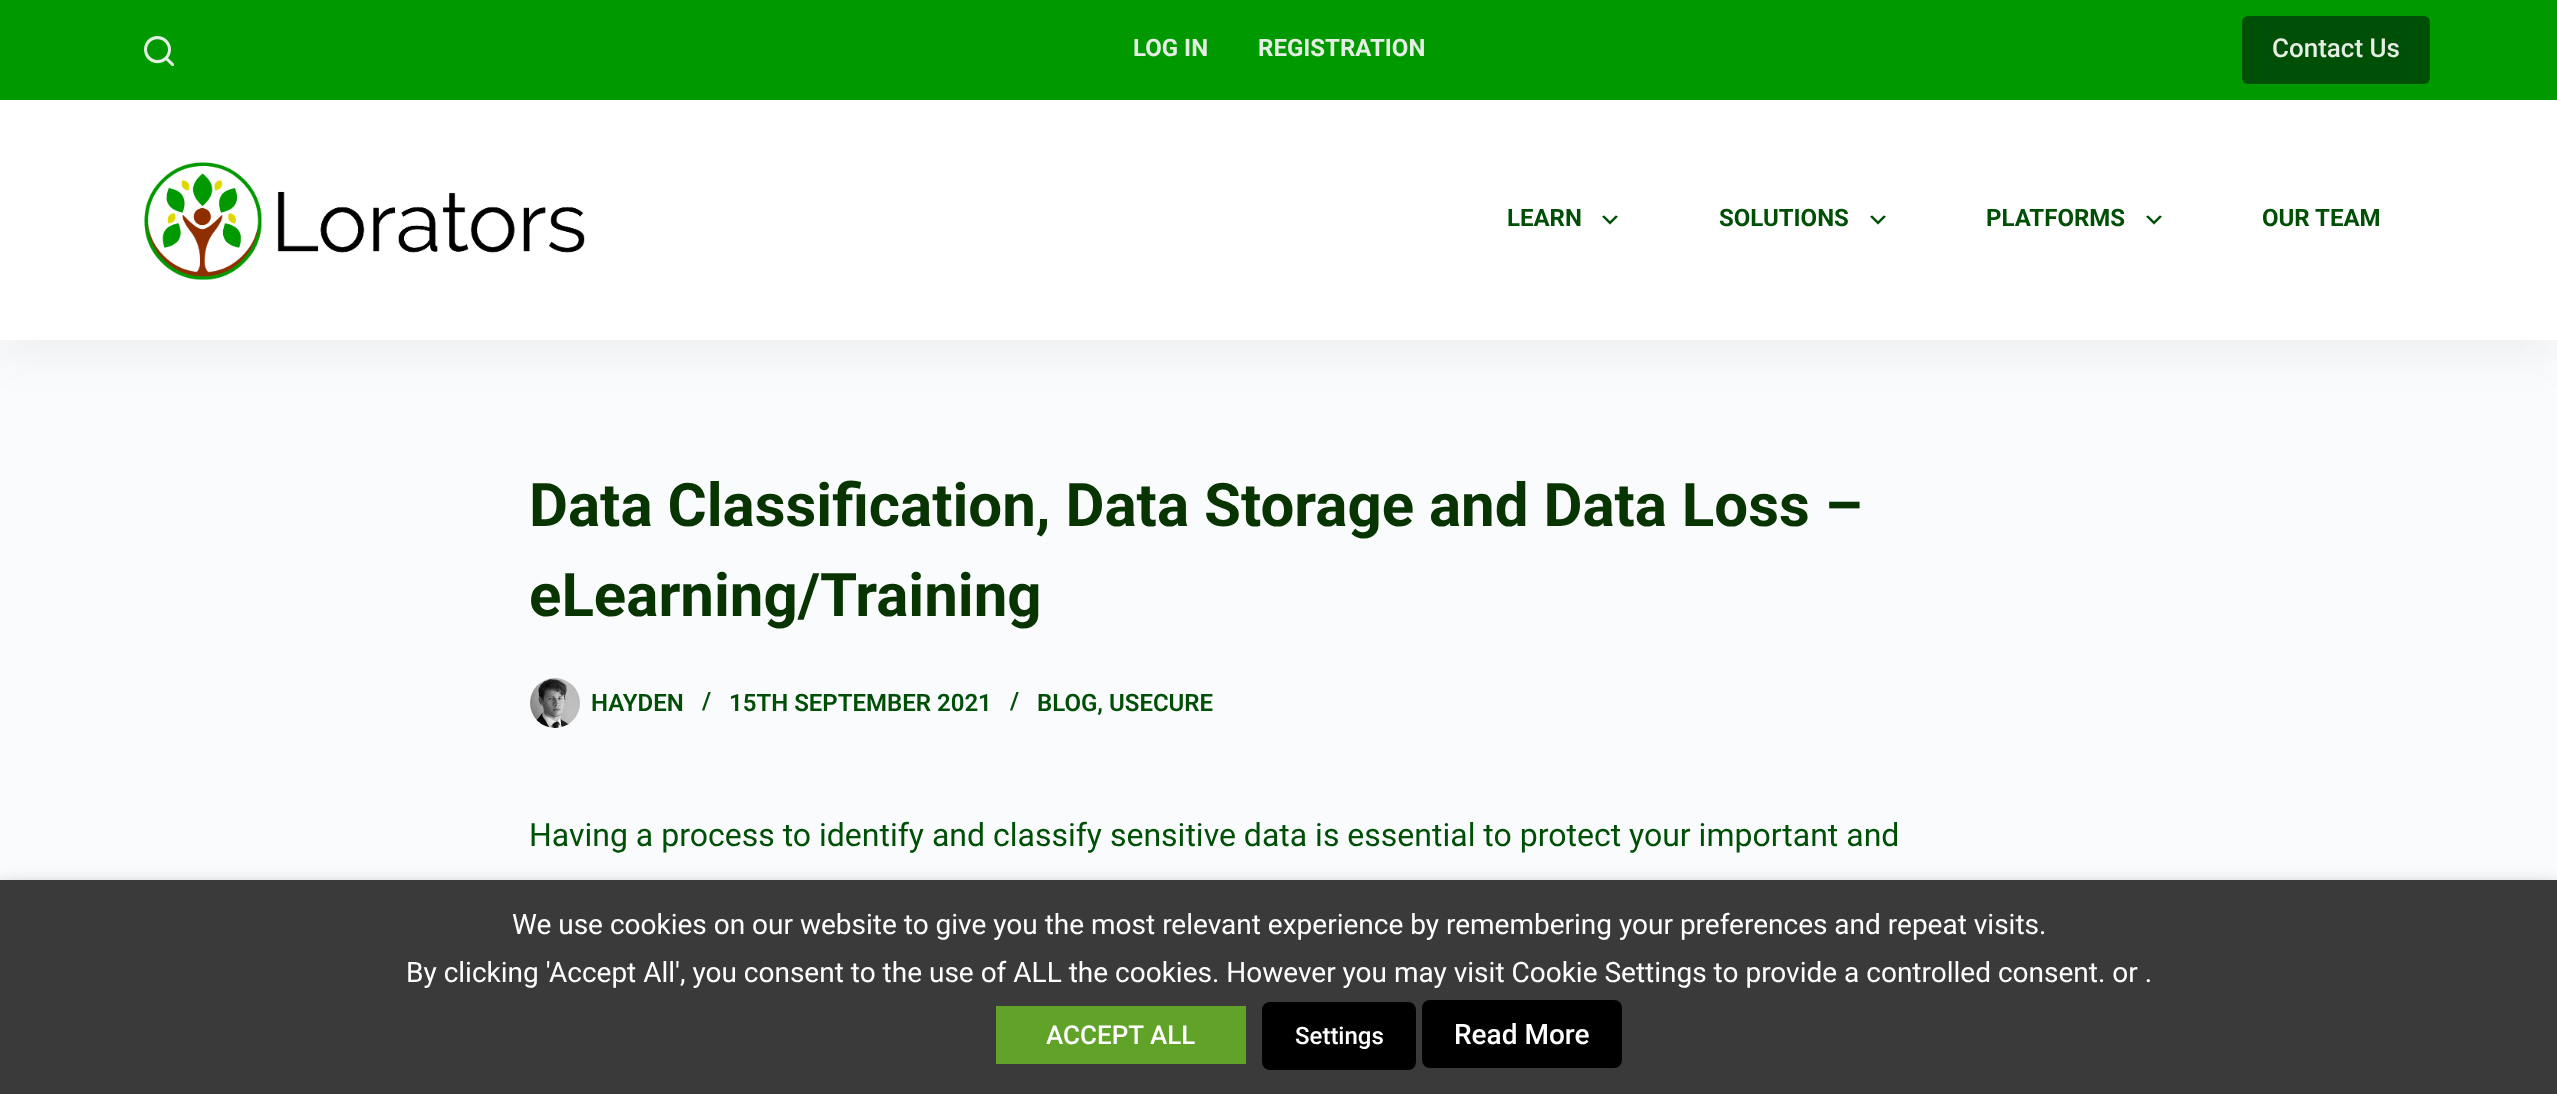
(async () => {
const canvas = document.querySelector("canvas")
canvas.width = 2557
canvas.height = 1094
const c = canvas.getContext("2d")
c.miterLimit = 4
c.fontKerning = "normal"
function T(s,x,y){c.fillText(s,x,y)}
function R(x,y,w,h){c.fillRect(x,y,w,h)}
function Q(x,y,w,h,r){c.beginPath();c.roundRect(x,y,w,h,r);c.fill()}
async function I(src,x,y,w,h){const img=new Image();img.src=src;await img.decode();c.drawImage(img,x,y,w,h)}
c.fillStyle="#fafbfc"
R(0,0,2557,1094)
c.fillStyle="#2c3e500d"
c.filter="blur(20px)"
c.beginPath()
c.rect(0,120,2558,240)
c.fill()
c.filter="none"
c.fillStyle="#090"
R(0,0,2557,100)
await I("1.png",144,36,30,30)
c.font="bold 24px Roboto"
c.fillStyle="#e5eee2"
T("LOG IN",1133,56)
T("REGISTRATION",1258,56)
c.fillStyle="#004f07"
Q(2242,16,188,68,6)
c.font="500 26px Roboto"
c.fillStyle="#e5eee2"
T("Contact Us",2272,57)
c.fillStyle="#fff"
R(0,100,2557,240)
await I("2.png",144,162,441,118)
c.font="bold 24px Roboto"
c.fillStyle="#004f07"
T("LEARN",1507,226)
await I("3.png",1602,215,16,10)
T("SOLUTIONS",1719,226)
await I("3.png",1870,215,16,10)
T("PLATFORMS",1986,226)
await I("3.png",2146,215,16,10)
T("OUR TEAM",2262,226)
c.font="bold 60px Roboto"
c.fillStyle="#073400"
T("Data Classification, Data Storage and Data Loss –",529,526)
T("eLearning/Training",529,616)
await I("4.png",530,678,50,50)
c.font="600 24px Roboto"
c.fillStyle="#004f07"
T("HAYDEN",591,711)
T("/",702,709)
T("15TH SEPTEMBER 2021",729,711)
T("/",1010,709)
T("BLOG, USECURE",1037,711)
c.font="32px Roboto"
T("Having a process to identify and classify sensitive data is essential to protect your important and",529,846)
c.fillStyle="#00000080"
c.filter="blur(10px)"
c.beginPath()
c.rect(0,890,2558,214)
c.fill()
c.filter="none"
c.fillStyle="#3a3a3a"
R(0,880,2557,214)
c.font="28px Roboto"
c.fillStyle="#fff"
T("We use cookies on our website to give you the most relevant experience by remembering your preferences and repeat visits.",512,934)
T("By clicking 'Accept All', you consent to the use of ALL the cookies. However you may visit Cookie Settings to provide a controlled consent. or .",406,982)
c.fillStyle="#61a229"
R(996,1006,250,58)
c.font="500 26px Roboto"
c.fillStyle="#fff"
T("ACCEPT ALL",1046,1044)
c.fillStyle="#000"
Q(1262,1002,154,68,8)
c.font="500 24px Roboto"
c.fillStyle="#fff"
T("Settings",1295,1044)
c.fillStyle="#000"
Q(1422,1000,200,68,8)
c.font="500 28px Roboto"
c.fillStyle="#fff"
T("Read More",1454,1044)
})()
